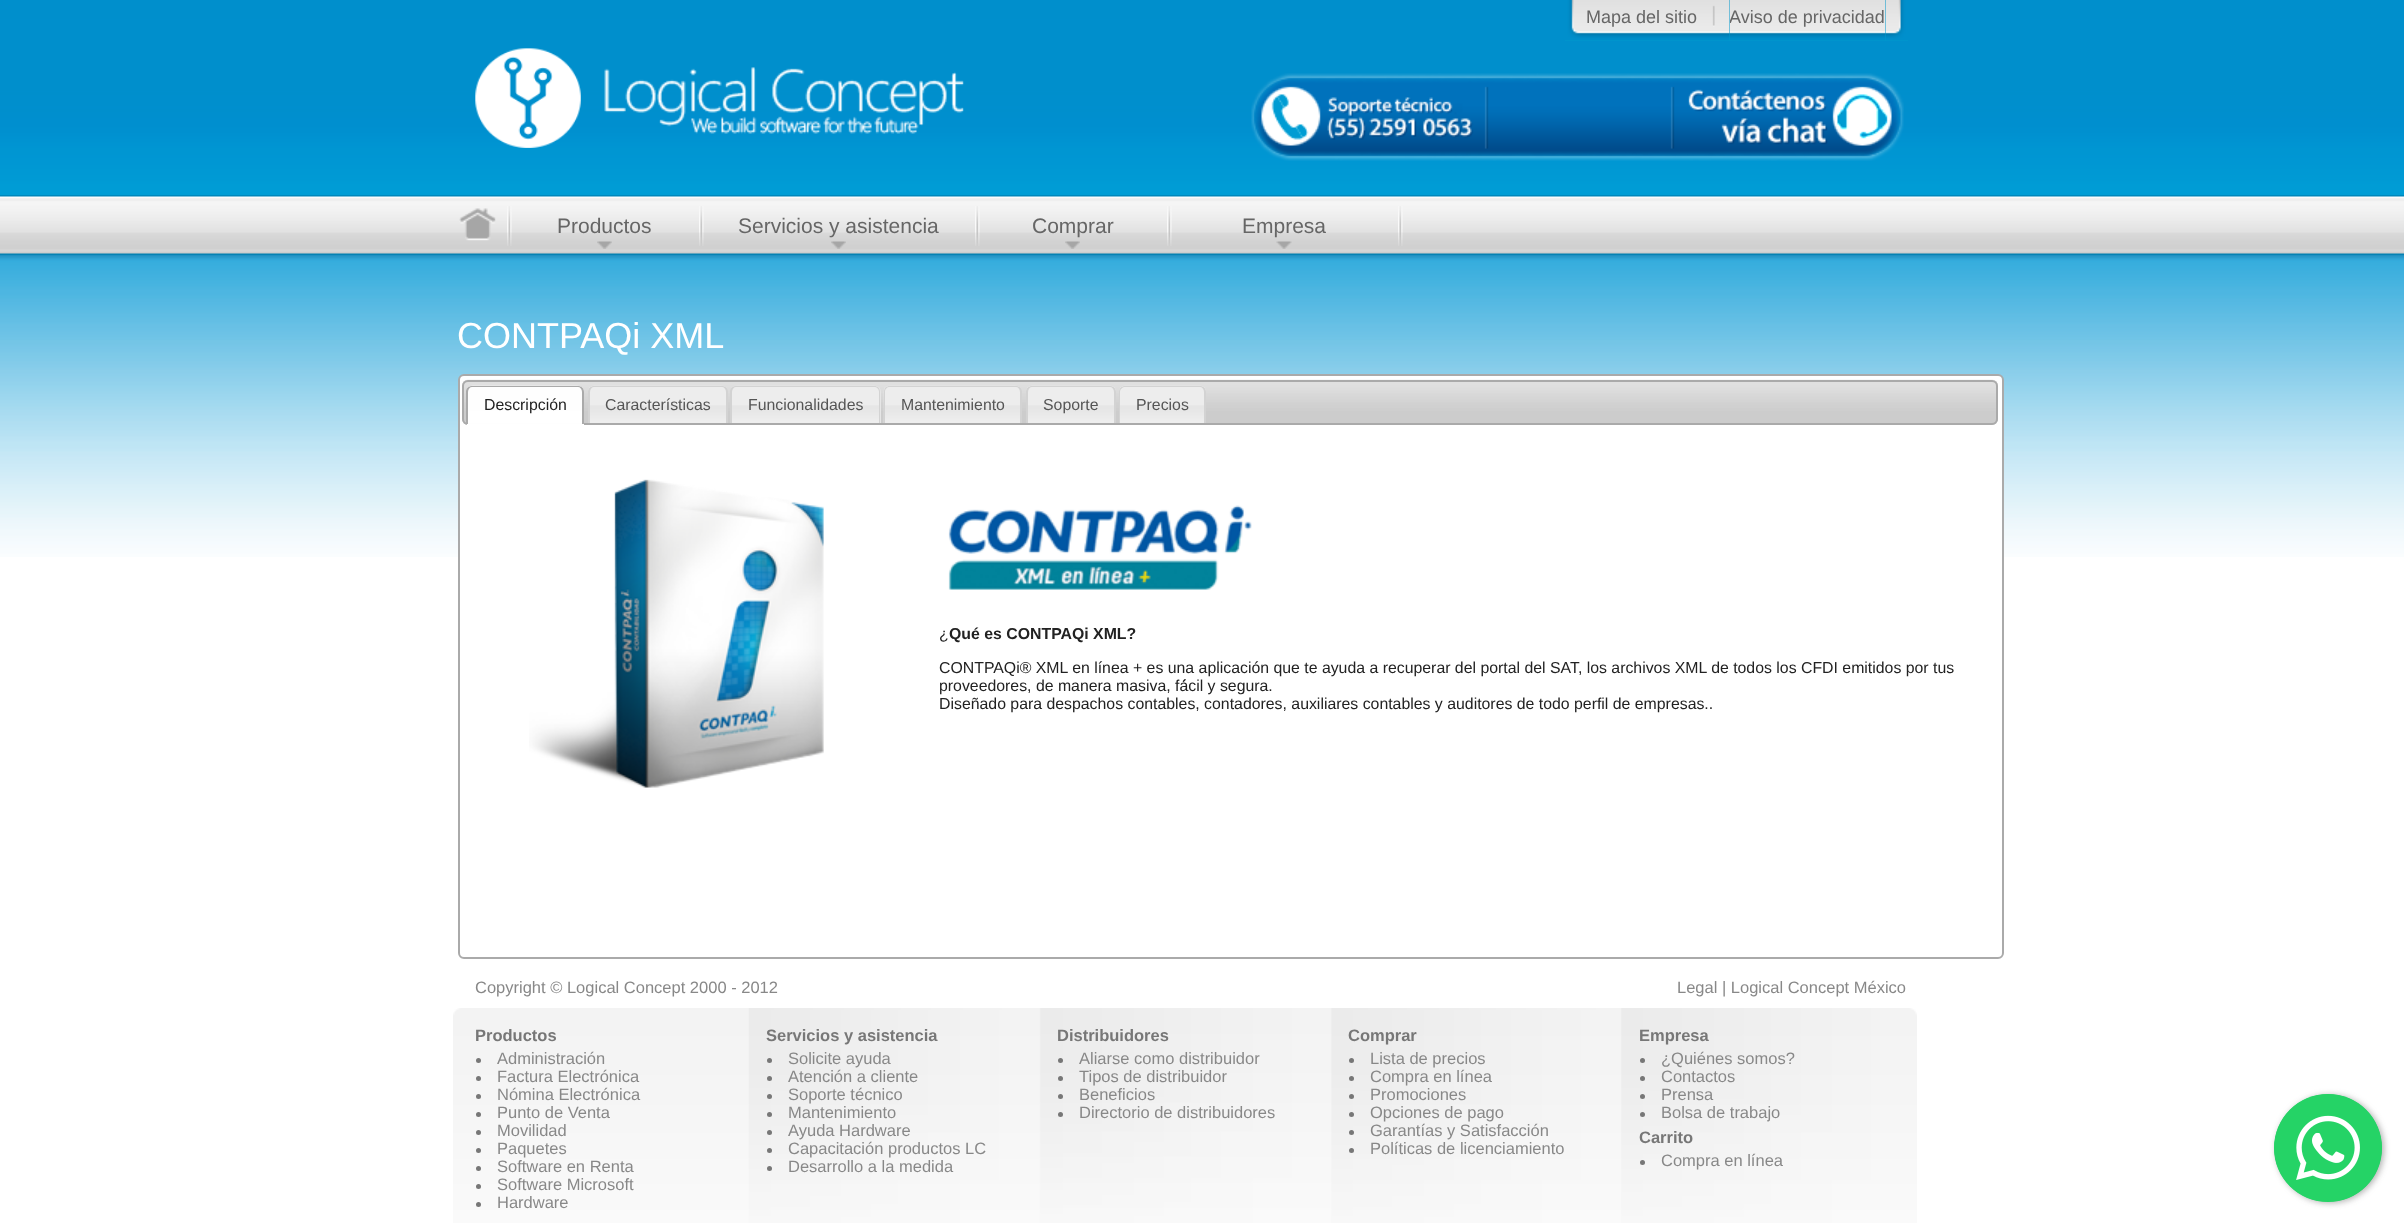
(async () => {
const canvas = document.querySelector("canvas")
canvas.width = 2404
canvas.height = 1223
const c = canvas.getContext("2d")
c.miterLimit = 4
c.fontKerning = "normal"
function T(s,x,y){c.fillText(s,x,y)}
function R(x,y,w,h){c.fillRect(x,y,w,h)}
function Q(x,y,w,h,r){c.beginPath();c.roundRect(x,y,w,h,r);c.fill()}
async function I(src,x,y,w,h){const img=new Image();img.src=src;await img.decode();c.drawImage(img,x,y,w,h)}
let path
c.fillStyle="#fff"
R(0,0,2404,1223)
await I("1.png",0,0,2404,557)
c.fillStyle="#09c"
R(1565,40,133,1)
await I("2.png",1565,0,22,41)
await I("3.png",1587,0,111,41)
c.font="18px Liberation Sans"
c.fillStyle="#666"
T("Mapa del sitio",1586,23)
c.fillStyle="#09c"
R(1730,0,156,41)
await I("5.png",1730,0,156,41)
c.fillStyle="#666"
T("Aviso de privacidad",1729,23)
c.fillStyle="#09c"
R(1698,0,32,41)
await I("4.png",1698,0,32,41)
R(1886,40,22,1)
await I("6.png",1886,0,22,41)
await I("7.png",475,48,106,100)
await I("8.png",604,67,360,67)
await I("9.png",1251,73,653,88)
await I("10.png",0,195,2404,66)
await I("11.png",459,208,37,33)
await I("12.png",507,206,5,40)
await I("13.png",597,241,15,8)
c.font="21px Liberation Sans"
c.fillStyle="#666"
T("Productos",557,233)
await I("14.png",699,206,5,40)
await I("15.png",831,241,15,8)
T("Servicios y asistencia",738,233)
await I("14.png",975,206,5,40)
await I("13.png",1065,241,15,8)
T("Comprar",1032,233)
await I("12.png",1167,206,5,40)
await I("16.png",1276,241,16,8)
T("Empresa",1242,233)
await I("14.png",1398,206,5,40)
c.font="36px Liberation Sans"
c.fillStyle="#fff"
T("CONTPAQi XML",457,348)
c.beginPath()
c.roundRect(459,375,1544,583,5)
c.fill()
c.strokeStyle="#aaa"
c.lineWidth=2
c.stroke()
c.fillStyle="#ccc"
Q(462,380,1536,45,6)
await I("17.png",462,379,1536,43)
c.beginPath()
c.roundRect(463,381,1534,43,5)
c.stroke()
c.fillStyle="#fff"
c.beginPath()
c.roundRect(467,386,117,39,[6,6,0,0])
c.fill()
await I("18.png",466,385,117,40)
c.fillStyle="#aaa"
path = new Path2D("M472 386h106c3 0 6 2 6 6v32h-118v-32c0-4 3-6 6-6zm0 1h106c2 0 4 2 4 5v32h-114v-32c0-3 2-5 4-5z")
c.fill(path,"evenodd")
c.font="15.85px Liberation Sans"
c.fillStyle="#222"
T("Descripción",484,410)
await I("19.png",588,385,139,38)
c.fillStyle="#d3d3d3"
path = new Path2D("M594 386h128c3 0 6 2 6 6v31h-140v-31c0-4 3-6 6-6zm0 1h128c2 0 4 2 4 5v31h-136v-31c0-3 2-5 4-5z")
c.fill(path,"evenodd")
c.fillStyle="#555"
T("Características",605,410)
c.fillStyle="#e6e6e6"
c.beginPath()
c.roundRect(731,386,150,37,[6,6,0,0])
c.fill()
await I("20.png",730,385,150,38)
c.fillStyle="#d3d3d3"
path = new Path2D("M736 386h138c4 0 6 2 6 6v31h-150v-31c0-4 3-6 6-6zm0 1h138c3 0 5 2 5 5v31h-147v-31c0-3 2-5 4-5z")
c.fill(path,"evenodd")
c.fillStyle="#555"
T("Funcionalidades",748,410)
await I("21.png",883,385,138,38)
c.fillStyle="#d3d3d3"
path = new Path2D("M890 386h126c3 0 6 2 6 6v31h-138v-31c0-4 2-6 6-6zm0 1h126c2 0 4 2 4 5v31h-135v-31c0-3 2-5 5-5z")
c.fill(path,"evenodd")
c.fillStyle="#555"
T("Mantenimiento",901,410)
await I("22.png",1026,385,90,38)
c.fillStyle="#d3d3d3"
path = new Path2D("M1032 386h78c3 0 6 2 6 6v31h-90v-31c0-4 3-6 6-6zm0 1h78c2 0 4 2 4 5v31h-86v-31c0-3 2-5 4-5z")
c.fill(path,"evenodd")
c.fillStyle="#555"
T("Soporte",1043,410)
await I("23.png",1119,385,87,38)
c.fillStyle="#d3d3d3"
path = new Path2D("M1125 386h75c3 0 6 2 6 6v31h-87v-31c0-4 3-6 6-6zm0 1h75c2 0 4 2 4 5v31h-84v-31c0-3 3-5 5-5z")
c.fill(path,"evenodd")
c.fillStyle="#555"
T("Precios",1136,410)
await I("24.png",529,479,295,309)
await I("25.png",948,505,304,85)
c.fillStyle="#222"
T("¿",939,639)
c.font="bold 15.85px Liberation Sans"
T("Qué es CONTPAQi XML?",949,639)
c.font="15.85px Liberation Sans"
T("CONTPAQi® XML en línea + es una aplicación que te ayuda a recuperar del portal del SAT, los archivos XML de todos los CFDI emitidos por tus",939,673)
T("proveedores, de manera masiva, fá́cil y segura.",939,691)
T("Diseñado para despachos contables, contadores, auxiliares contables y auditores de todo perfil de empresas..",939,709)
c.font="16.5px Liberation Sans"
c.fillStyle="#888"
T("Copyright © Logical Concept 2000 - 2012",475,993)
T("Legal | Logical Concept México",1677,993)
await I("26.png",453,1008,1464,215)
c.font="bold 16.5px Liberation Sans"
c.fillStyle="#777"
T("Productos",475,1041)
c.beginPath()
c.arc(478.5,1060.5,2.5,0,7)
c.fill()
c.font="16.5px Liberation Sans"
c.fillStyle="#888"
T("Administración",497,1064)
c.fillStyle="#777"
c.beginPath()
c.arc(478.5,1078.5,2.5,0,7)
c.fill()
c.fillStyle="#888"
T("Factura Electrónica",497,1082)
c.fillStyle="#777"
c.beginPath()
c.arc(478.5,1096.5,2.5,0,7)
c.fill()
c.fillStyle="#888"
T("Nómina Electrónica",497,1100)
c.fillStyle="#777"
c.beginPath()
c.arc(478.5,1114.5,2.5,0,7)
c.fill()
c.fillStyle="#888"
T("Punto de Venta",497,1118)
c.fillStyle="#777"
c.beginPath()
c.arc(478.5,1132.5,2.5,0,7)
c.fill()
c.fillStyle="#888"
T("Movilidad",497,1136)
c.fillStyle="#777"
c.beginPath()
c.arc(478.5,1150.5,2.5,0,7)
c.fill()
c.fillStyle="#888"
T("Paquetes",497,1154)
c.fillStyle="#777"
c.beginPath()
c.arc(478.5,1168.5,2.5,0,7)
c.fill()
c.fillStyle="#888"
T("Software en Renta",497,1172)
c.fillStyle="#777"
c.beginPath()
c.arc(478.5,1186.5,2.5,0,7)
c.fill()
c.fillStyle="#888"
T("Software Microsoft",497,1190)
c.fillStyle="#777"
c.beginPath()
c.arc(478.5,1204.5,2.5,0,7)
c.fill()
c.fillStyle="#888"
T("Hardware",497,1208)
c.font="bold 16.5px Liberation Sans"
c.fillStyle="#777"
T("Servicios y asistencia",766,1041)
c.beginPath()
c.arc(769.5,1060.5,2.5,0,7)
c.fill()
c.font="16.5px Liberation Sans"
c.fillStyle="#888"
T("Solicite ayuda",788,1064)
c.fillStyle="#777"
c.beginPath()
c.arc(769.5,1078.5,2.5,0,7)
c.fill()
c.fillStyle="#888"
T("Atención a cliente",788,1082)
c.fillStyle="#777"
c.beginPath()
c.arc(769.5,1096.5,2.5,0,7)
c.fill()
c.fillStyle="#888"
T("Soporte técnico",788,1100)
c.fillStyle="#777"
c.beginPath()
c.arc(769.5,1114.5,2.5,0,7)
c.fill()
c.fillStyle="#888"
T("Mantenimiento",788,1118)
c.fillStyle="#777"
c.beginPath()
c.arc(769.5,1132.5,2.5,0,7)
c.fill()
c.fillStyle="#888"
T("Ayuda Hardware",788,1136)
c.fillStyle="#777"
c.beginPath()
c.arc(769.5,1150.5,2.5,0,7)
c.fill()
c.fillStyle="#888"
T("Capacitación productos LC",788,1154)
c.fillStyle="#777"
c.beginPath()
c.arc(769.5,1168.5,2.5,0,7)
c.fill()
c.fillStyle="#888"
T("Desarrollo a la medida",788,1172)
c.font="bold 16.5px Liberation Sans"
c.fillStyle="#777"
T("Distribuidores",1057,1041)
c.beginPath()
c.arc(1060.5,1060.5,2.5,0,7)
c.fill()
c.font="16.5px Liberation Sans"
c.fillStyle="#888"
T("Aliarse como distribuidor",1079,1064)
c.fillStyle="#777"
c.beginPath()
c.arc(1060.5,1078.5,2.5,0,7)
c.fill()
c.fillStyle="#888"
T("Tipos de distribuidor",1079,1082)
c.fillStyle="#777"
c.beginPath()
c.arc(1060.5,1096.5,2.5,0,7)
c.fill()
c.fillStyle="#888"
T("Beneficios",1079,1100)
c.fillStyle="#777"
c.beginPath()
c.arc(1060.5,1114.5,2.5,0,7)
c.fill()
c.fillStyle="#888"
T("Directorio de distribuidores",1079,1118)
c.font="bold 16.5px Liberation Sans"
c.fillStyle="#777"
T("Comprar",1348,1041)
c.beginPath()
c.arc(1351.5,1060.5,2.5,0,7)
c.fill()
c.font="16.5px Liberation Sans"
c.fillStyle="#888"
T("Lista de precios",1370,1064)
c.fillStyle="#777"
c.beginPath()
c.arc(1351.5,1078.5,2.5,0,7)
c.fill()
c.fillStyle="#888"
T("Compra en línea",1370,1082)
c.fillStyle="#777"
c.beginPath()
c.arc(1351.5,1096.5,2.5,0,7)
c.fill()
c.fillStyle="#888"
T("Promociones",1370,1100)
c.fillStyle="#777"
c.beginPath()
c.arc(1351.5,1114.5,2.5,0,7)
c.fill()
c.fillStyle="#888"
T("Opciones de pago",1370,1118)
c.fillStyle="#777"
c.beginPath()
c.arc(1351.5,1132.5,2.5,0,7)
c.fill()
c.fillStyle="#888"
T("Garantías y Satisfacción",1370,1136)
c.fillStyle="#777"
c.beginPath()
c.arc(1351.5,1150.5,2.5,0,7)
c.fill()
c.fillStyle="#888"
T("Políticas de licenciamiento",1370,1154)
c.font="bold 16.5px Liberation Sans"
c.fillStyle="#777"
T("Empresa",1639,1041)
c.beginPath()
c.arc(1642.5,1060.5,2.5,0,7)
c.fill()
c.font="16.5px Liberation Sans"
c.fillStyle="#888"
T("¿Quiénes somos?",1661,1064)
c.fillStyle="#777"
c.beginPath()
c.arc(1642.5,1078.5,2.5,0,7)
c.fill()
c.fillStyle="#888"
T("Contactos",1661,1082)
c.fillStyle="#777"
c.beginPath()
c.arc(1642.5,1096.5,2.5,0,7)
c.fill()
c.fillStyle="#888"
T("Prensa",1661,1100)
c.fillStyle="#777"
c.beginPath()
c.arc(1642.5,1114.5,2.5,0,7)
c.fill()
c.fillStyle="#888"
T("Bolsa de trabajo",1661,1118)
c.font="bold 16.5px Liberation Sans"
c.fillStyle="#777"
T("Carrito",1639,1143)
c.beginPath()
c.arc(1642.5,1162.5,2.5,0,7)
c.fill()
c.font="16.5px Liberation Sans"
c.fillStyle="#888"
T("Compra en línea",1661,1166)
c.fillStyle="#3c3c3c66"
c.filter="blur(3px)"
c.beginPath()
c.roundRect(2276,1095,108,108,54)
c.fill()
c.filter="none"
c.fillStyle="#25d366"
c.beginPath()
c.arc(2328,1148,54,0,7)
c.fill()
await I("27.png",2274,1094,108,108)
})()
